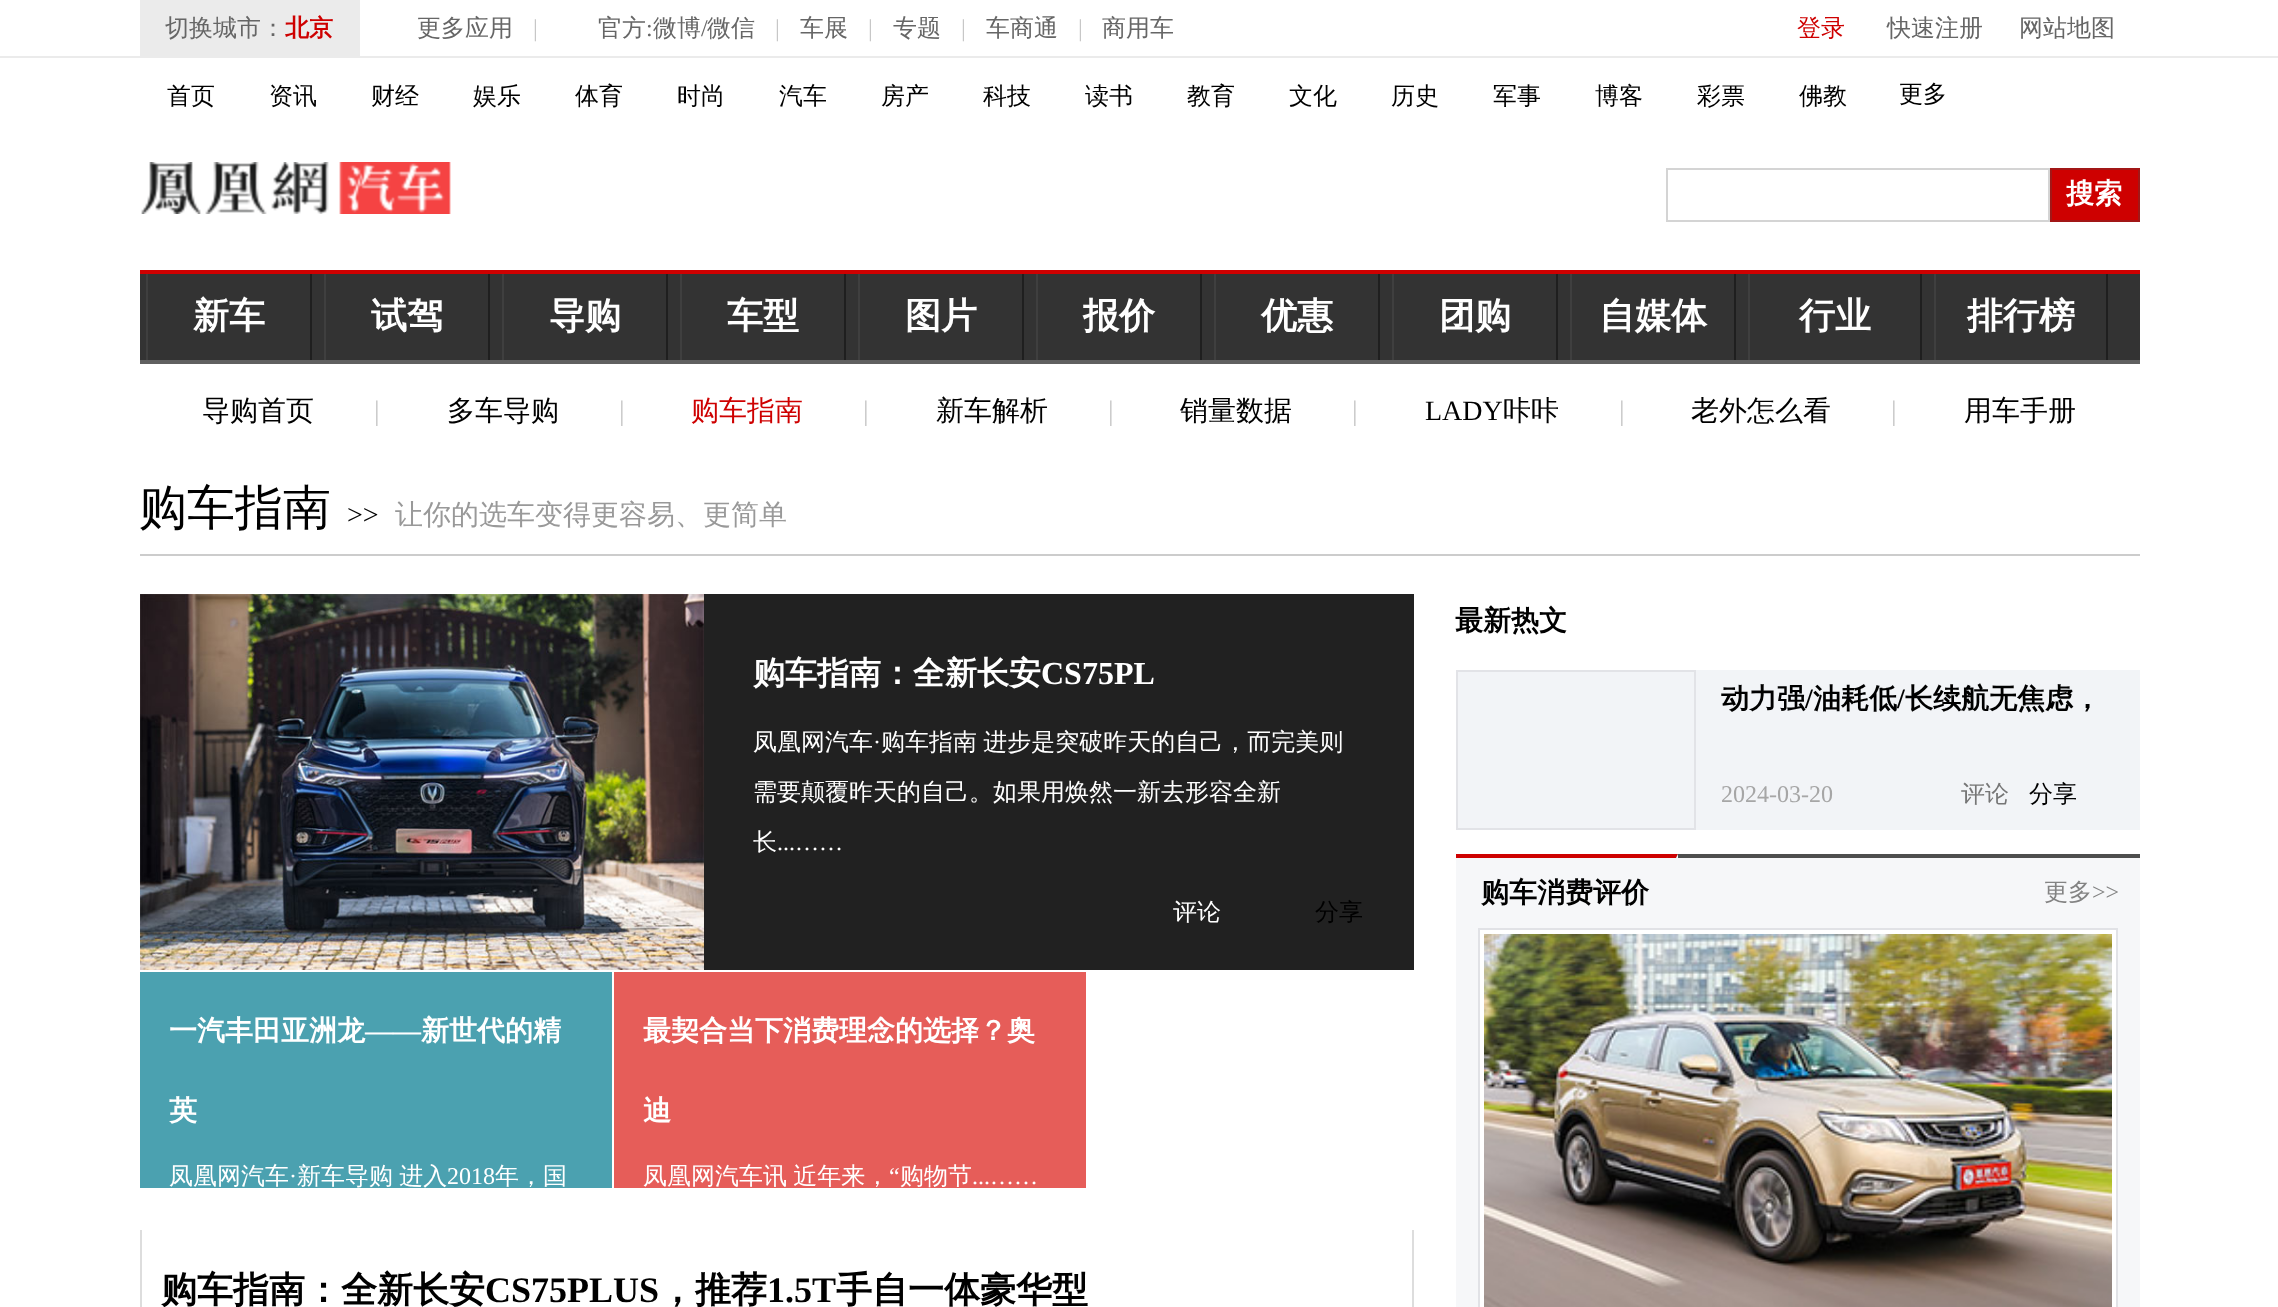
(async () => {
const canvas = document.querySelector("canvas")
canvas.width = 2278
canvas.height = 1307
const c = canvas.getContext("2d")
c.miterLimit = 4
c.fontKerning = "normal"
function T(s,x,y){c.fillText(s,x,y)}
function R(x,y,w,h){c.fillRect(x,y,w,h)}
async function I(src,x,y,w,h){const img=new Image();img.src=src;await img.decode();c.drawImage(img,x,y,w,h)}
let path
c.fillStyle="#fff"
R(0,0,2278,1307)
c.fillStyle="#ebebeb"
R(0,56,2278,2)
R(140,0,220,56)
c.font="500 24px WenQuanYi Zen Hei"
c.fillStyle="#666"
T("切换城市：",165,36)
c.font="bold 24px WenQuanYi Zen Hei"
c.fillStyle="#ce0000"
T("北京",285,36)
c.font="500 24px WenQuanYi Zen Hei"
c.fillStyle="#666"
T("更多应用",417,36)
c.font="24px Liberation Serif"
c.fillStyle="#c7c7c7"
T("|",533,36)
c.font="500 24px WenQuanYi Zen Hei"
c.fillStyle="#666"
T("官方",598,36)
c.font="24px Liberation Serif"
T(":",646,36)
c.font="500 24px WenQuanYi Zen Hei"
T("微博",653,36)
c.font="24px Liberation Serif"
T("/",701,36)
c.font="500 24px WenQuanYi Zen Hei"
T("微信",707,36)
c.font="24px Liberation Serif"
c.fillStyle="#c7c7c7"
T("|",775,36)
c.font="500 24px WenQuanYi Zen Hei"
c.fillStyle="#666"
T("车展",800,36)
c.font="24px Liberation Serif"
c.fillStyle="#c7c7c7"
T("|",868,36)
c.font="500 24px WenQuanYi Zen Hei"
c.fillStyle="#666"
T("专题",893,36)
c.font="24px Liberation Serif"
c.fillStyle="#c7c7c7"
T("|",961,36)
c.font="500 24px WenQuanYi Zen Hei"
c.fillStyle="#666"
T("车商通",986,36)
c.font="24px Liberation Serif"
c.fillStyle="#c7c7c7"
T("|",1078,36)
c.font="500 24px WenQuanYi Zen Hei"
c.fillStyle="#666"
T("商用车",1102,36)
c.fillStyle="#ce0000"
T("登录",1797,36)
c.fillStyle="#666"
T("快速注册",1887,36)
T("网站地图",2019,36)
c.fillStyle="#000"
T("首页",167,104)
T("资讯",269,104)
T("财经",371,104)
T("娱乐",473,104)
T("体育",575,104)
T("时尚",677,104)
T("汽车",779,104)
T("房产",881,104)
T("科技",983,104)
T("读书",1085,104)
T("教育",1187,104)
T("文化",1289,104)
T("历史",1391,104)
T("军事",1493,104)
T("博客",1595,104)
T("彩票",1697,104)
T("佛教",1799,104)
T("更多",1899,102)
await I("1.png",141,162,310,52)
c.strokeStyle="#d4d4d4"
c.lineWidth=2
c.strokeRect(1667,169,382,52)
c.fillStyle="#ce0000"
c.beginPath()
c.rect(2051,169,88,52)
c.fill()
c.strokeStyle="#a21717"
c.stroke()
c.font="bold 28px WenQuanYi Zen Hei"
c.fillStyle="#fff"
T("搜索",2066,203)
c.fillStyle="#333"
R(140,274,2000,86)
c.fillStyle="#ce0000"
R(140,270,2000,4)
c.fillStyle="#606060"
R(140,360,2000,4)
c.fillStyle="#1f1f1f"
R(310,274,2,86)
c.fillStyle="#3f3f3f"
R(146,274,2,86)
c.font="bold 36px WenQuanYi Zen Hei"
c.fillStyle="#fff"
T("新车",193,328)
c.fillStyle="#1f1f1f"
R(488,274,2,86)
c.fillStyle="#3f3f3f"
R(324,274,2,86)
c.fillStyle="#fff"
T("试驾",371,328)
c.fillStyle="#1f1f1f"
R(666,274,2,86)
c.fillStyle="#3f3f3f"
R(502,274,2,86)
c.fillStyle="#fff"
T("导购",549,328)
c.fillStyle="#1f1f1f"
R(844,274,2,86)
c.fillStyle="#3f3f3f"
R(680,274,2,86)
c.fillStyle="#fff"
T("车型",727,328)
c.fillStyle="#1f1f1f"
R(1022,274,2,86)
c.fillStyle="#3f3f3f"
R(858,274,2,86)
c.fillStyle="#fff"
T("图片",905,328)
c.fillStyle="#1f1f1f"
R(1200,274,2,86)
c.fillStyle="#3f3f3f"
R(1036,274,2,86)
c.fillStyle="#fff"
T("报价",1083,328)
c.fillStyle="#1f1f1f"
R(1378,274,2,86)
c.fillStyle="#3f3f3f"
R(1214,274,2,86)
c.fillStyle="#fff"
T("优惠",1261,328)
c.fillStyle="#1f1f1f"
R(1556,274,2,86)
c.fillStyle="#3f3f3f"
R(1392,274,2,86)
c.fillStyle="#fff"
T("团购",1439,328)
c.fillStyle="#1f1f1f"
R(1734,274,2,86)
c.fillStyle="#3f3f3f"
R(1570,274,2,86)
c.fillStyle="#fff"
T("自媒体",1599,328)
c.fillStyle="#1f1f1f"
R(1920,274,2,86)
c.fillStyle="#3f3f3f"
R(1748,274,2,86)
c.fillStyle="#fff"
T("行业",1799,328)
c.fillStyle="#1f1f1f"
R(2106,274,2,86)
c.fillStyle="#3f3f3f"
R(1934,274,2,86)
c.fillStyle="#fff"
T("排行榜",1967,328)
c.font="500 28px WenQuanYi Zen Hei"
c.fillStyle="#000"
T("导购首页",202,420)
c.font="28px Liberation Serif"
c.fillStyle="#c7c7c7"
T("|",374,420)
c.font="500 28px WenQuanYi Zen Hei"
c.fillStyle="#000"
T("多车导购",447,420)
c.font="28px Liberation Serif"
c.fillStyle="#c7c7c7"
T("|",619,420)
c.font="500 28px WenQuanYi Zen Hei"
c.fillStyle="#ce0000"
T("购车指南",691,420)
c.font="28px Liberation Serif"
c.fillStyle="#c7c7c7"
T("|",863,420)
c.font="500 28px WenQuanYi Zen Hei"
c.fillStyle="#000"
T("新车解析",936,420)
c.font="28px Liberation Serif"
c.fillStyle="#c7c7c7"
T("|",1108,420)
c.font="500 28px WenQuanYi Zen Hei"
c.fillStyle="#000"
T("销量数据",1180,420)
c.font="28px Liberation Serif"
c.fillStyle="#c7c7c7"
T("|",1352,420)
c.fillStyle="#000"
T("LADY",1425,420)
c.font="500 28px WenQuanYi Zen Hei"
T("咔咔",1503,420)
c.font="28px Liberation Serif"
c.fillStyle="#c7c7c7"
T("|",1619,420)
c.font="500 28px WenQuanYi Zen Hei"
c.fillStyle="#000"
T("老外怎么看",1691,420)
c.font="28px Liberation Serif"
c.fillStyle="#c7c7c7"
T("|",1891,420)
c.font="500 28px WenQuanYi Zen Hei"
c.fillStyle="#000"
T("用车手册",1964,420)
c.fillStyle="#ccc"
R(140,554,2000,2)
c.font="500 48px WenQuanYi Zen Hei"
c.fillStyle="#000"
T("购车指南",139,524)
c.font="28px Liberation Serif"
T(">>",347,524)
c.font="500 28px WenQuanYi Zen Hei"
c.fillStyle="#999"
T("让你的选车变得更容易、更简单",395,524)
await I("2.png",140,594,564,376)
c.fillStyle="#212121"
R(704,594,710,376)
c.font="bold 32px WenQuanYi Zen Hei"
c.fillStyle="#fff"
T("购车指南：全新长安",753,684)
c.font="bold 32px Liberation Serif"
T("CS75PL",1041,684)
c.font="500 24px WenQuanYi Zen Hei"
T("凤凰网汽车",753,750)
c.font="24px Liberation Serif"
T("·",873,750)
c.wordSpacing="-1px"
c.font="500 24px WenQuanYi Zen Hei"
T("购车指南 进步是突破昨天的自己，而完美则",881,750)
c.wordSpacing="0px"
T("需要颠覆昨天的自己。如果用焕然一新去形容全新",753,800)
T("长",753,850)
c.font="24px Liberation Serif"
T("...……",777,850)
c.font="500 24px WenQuanYi Zen Hei"
T("评论",1173,920)
c.fillStyle="#000"
T("分享",1315,920)
c.fillStyle="#4ba1b0"
R(140,972,472,216)
c.font="bold 28px WenQuanYi Zen Hei"
c.fillStyle="#fff"
T("一汽丰田亚洲龙",169,1040)
c.font="bold 28px Liberation Serif"
T("——",365,1040)
c.font="bold 28px WenQuanYi Zen Hei"
T("新世代的精",421,1040)
T("英",169,1120)
c.font="500 24px WenQuanYi Zen Hei"
T("凤凰网汽车",169,1184)
c.font="24px Liberation Serif"
T("·",289,1184)
c.wordSpacing="-1px"
c.font="500 24px WenQuanYi Zen Hei"
T("新车导购 进入",297,1184)
c.wordSpacing="0px"
c.font="24px Liberation Serif"
T("2018",447,1184)
c.font="500 24px WenQuanYi Zen Hei"
T("年，国",495,1184)
c.fillStyle="#e65d59"
R(614,972,472,216)
c.font="bold 28px WenQuanYi Zen Hei"
c.fillStyle="#fff"
T("最契合当下消费理念的选择？奥",643,1040)
T("迪",643,1120)
c.wordSpacing="-1px"
c.font="500 24px WenQuanYi Zen Hei"
T("凤凰网汽车讯 近年来，",643,1184)
c.wordSpacing="0px"
c.font="24px Liberation Serif"
T("“",889,1184)
c.font="500 24px WenQuanYi Zen Hei"
T("购物节",900,1184)
c.font="24px Liberation Serif"
T("...……",972,1184)
c.fillStyle="#ddd"
R(1412,1230,2,77)
R(140,1230,2,77)
c.font="bold 36px WenQuanYi Zen Hei"
c.fillStyle="#000"
T("购车指南：全新长安",161,1302)
c.font="bold 36px Liberation Serif"
T("CS75PLUS",485,1302)
c.font="bold 36px WenQuanYi Zen Hei"
T("，推荐",659,1302)
c.font="bold 36px Liberation Serif"
T("1.5T",767,1302)
c.font="bold 36px WenQuanYi Zen Hei"
T("手自一体豪华型",836,1302)
c.font="bold 28px WenQuanYi Zen Hei"
T("最新热文",1455,630)
c.fillStyle="#f2f4f7"
R(1458,670,682,160)
c.strokeStyle="#e2e3e7"
c.strokeRect(1457,671,238,158)
c.fillStyle="#000"
T("动力强",1721,708)
c.font="bold 28px Liberation Serif"
T("/",1805,708)
c.font="bold 28px WenQuanYi Zen Hei"
T("油耗低",1813,708)
c.font="bold 28px Liberation Serif"
T("/",1897,708)
c.font="bold 28px WenQuanYi Zen Hei"
T("长续航无焦虑，",1905,708)
c.font="24px Liberation Serif"
c.fillStyle="#a6a6a6"
T("2024-03-20",1721,802)
c.font="500 24px WenQuanYi Zen Hei"
c.fillStyle="#767676"
T("评论",1961,802)
c.fillStyle="#000"
T("分享",2029,802)
c.fillStyle="#f6f7f9"
R(1456,858,684,449)
c.fillStyle="#4e4e4e"
R(1676,854,464,4)
c.fillStyle="#ce0000"
path = new Path2D("M1456 854h222l-2 4h-220z")
c.fill(path)
c.fillStyle="#f6f7f9"
path = new Path2D("M1678 854v74h-2v-70z")
c.fill(path)
c.font="bold 28px WenQuanYi Zen Hei"
c.fillStyle="#000"
T("购车消费评价",1481,902)
c.font="500 24px WenQuanYi Zen Hei"
c.fillStyle="#838383"
T("更多",2044,900)
c.font="24px Liberation Serif"
T(">>",2092,900)
c.fillStyle="#fff"
c.beginPath()
c.rect(1479,929,638,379)
c.fill()
c.strokeStyle="#e1e2e6"
c.stroke()
await I("3.png",1484,934,628,373)
})()
